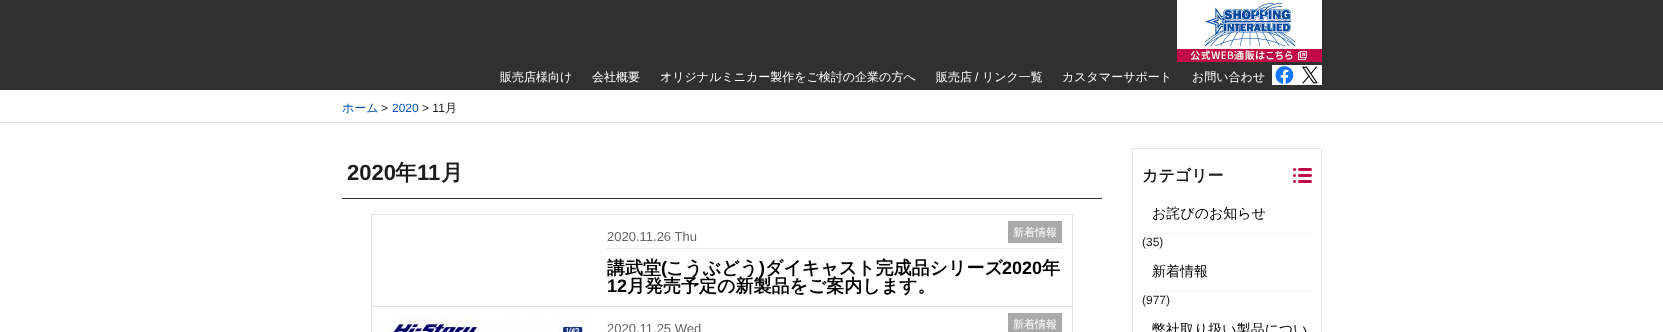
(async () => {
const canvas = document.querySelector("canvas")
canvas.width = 1663
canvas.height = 332
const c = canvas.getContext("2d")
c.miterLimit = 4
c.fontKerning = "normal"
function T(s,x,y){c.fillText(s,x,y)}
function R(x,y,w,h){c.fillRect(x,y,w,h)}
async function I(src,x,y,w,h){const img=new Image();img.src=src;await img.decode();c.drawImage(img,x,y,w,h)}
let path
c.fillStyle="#fff"
R(0,0,1663,332)
c.fillStyle="#303030"
R(0,0,1663,90)
await I("1.png",1177,0,145,62)
c.font="500 12px WenQuanYi Zen Hei"
c.fillStyle="#fff"
T("販売店様向け",500,81)
T("会社概要",592,81)
T("オリジナルミニカー製作をご検討の企業の方へ",660,81)
T("販売店",936,81)
c.font="12px Liberation Sans"
T("/",975,81)
c.font="500 12px WenQuanYi Zen Hei"
T("リンク一覧",982,81)
T("カスタマーサポート",1062,81)
T("お問い合わせ",1192,81)
R(1272,65,50,20)
await I("2.png",1275,66,19,18)
await I("3.png",1302,66,16,18)
c.fillStyle="#e5e5e5"
R(0,122,1663,1)
c.fillStyle="#014ead"
T("ホーム",342,112)
c.font="12px Liberation Sans"
c.fillStyle="#1c1c1c"
T(">",381,112)
c.fillStyle="#014ead"
T("2020",392,112)
c.fillStyle="#1c1c1c"
T("> 11",422,112)
c.font="500 12px WenQuanYi Zen Hei"
T("月",445,112)
c.fillStyle="#303030"
R(342,198,760,1)
c.font="bold 22px Liberation Sans"
c.fillStyle="#1c1c1c"
T("2020",347,180)
c.font="bold 22px WenQuanYi Zen Hei"
T("年",395,180)
c.font="bold 22px Liberation Sans"
T("11",417,180)
c.font="bold 22px WenQuanYi Zen Hei"
T("月",441,180)
c.fillStyle="#e5e5e5"
R(371,214,702,1)
R(1072,214,1,118)
R(371,214,1,118)
R(372,306,700,1)
c.fillStyle="#aaa"
R(1008,221,54,22)
c.font="500 11px WenQuanYi Zen Hei"
c.fillStyle="#fff"
T("新着情報",1013,236)
path = new Path2D("M607 248.5h455")
c.strokeStyle="#dedede"
c.setLineDash([1,1])
c.stroke(path)
c.font="13px Liberation Sans"
c.fillStyle="#666"
T("2020.11.26 Thu",607,241)
c.font="bold 18px WenQuanYi Zen Hei"
c.fillStyle="#000"
T("講武堂",607,274)
c.font="bold 18px Liberation Sans"
T("(",661,274)
c.font="bold 18px WenQuanYi Zen Hei"
T("こうぶどう",666,274)
c.font="bold 18px Liberation Sans"
T(")",759,274)
c.font="bold 18px WenQuanYi Zen Hei"
T("ダイキャスト完成品シリーズ",765,274)
c.font="bold 18px Liberation Sans"
T("2020",1002,274)
c.font="bold 18px WenQuanYi Zen Hei"
T("年",1042,274)
c.font="bold 18px Liberation Sans"
T("12",607,292)
c.font="bold 18px WenQuanYi Zen Hei"
T("月発売予定の新製品をご案内します。",627,292)
await I("4.png",382,317,209,15)
c.font="13px Liberation Sans"
c.fillStyle="#666"
T("2020.11.25 Wed",607,333)
c.fillStyle="#aaa"
R(1008,313,54,19)
c.font="500 11px WenQuanYi Zen Hei"
c.fillStyle="#fff"
T("新着情報",1013,328)
c.fillStyle="#e5e5e5"
R(1132,148,190,1)
R(1321,148,1,184)
R(1132,148,1,184)
await I("5.png",1293,168,19,15)
c.font="bold 16px WenQuanYi Zen Hei"
c.fillStyle="#1c1c1c"
T("カテゴリー",1142,181)
c.fillStyle="#f5f5f5"
R(1142,233,170,1)
c.font="500 14px WenQuanYi Zen Hei"
c.fillStyle="#000"
T("お詫びのお知らせ",1152,218)
c.font="12px Liberation Sans"
c.fillStyle="#1c1c1c"
T("(35)",1142,246)
c.fillStyle="#f5f5f5"
R(1142,291,170,1)
c.font="500 14px WenQuanYi Zen Hei"
c.fillStyle="#000"
T("新着情報",1152,276)
c.font="12px Liberation Sans"
c.fillStyle="#1c1c1c"
T("(977)",1142,304)
c.font="500 14px WenQuanYi Zen Hei"
c.fillStyle="#000"
T("弊社取り扱い製品につい",1152,334)
})()
